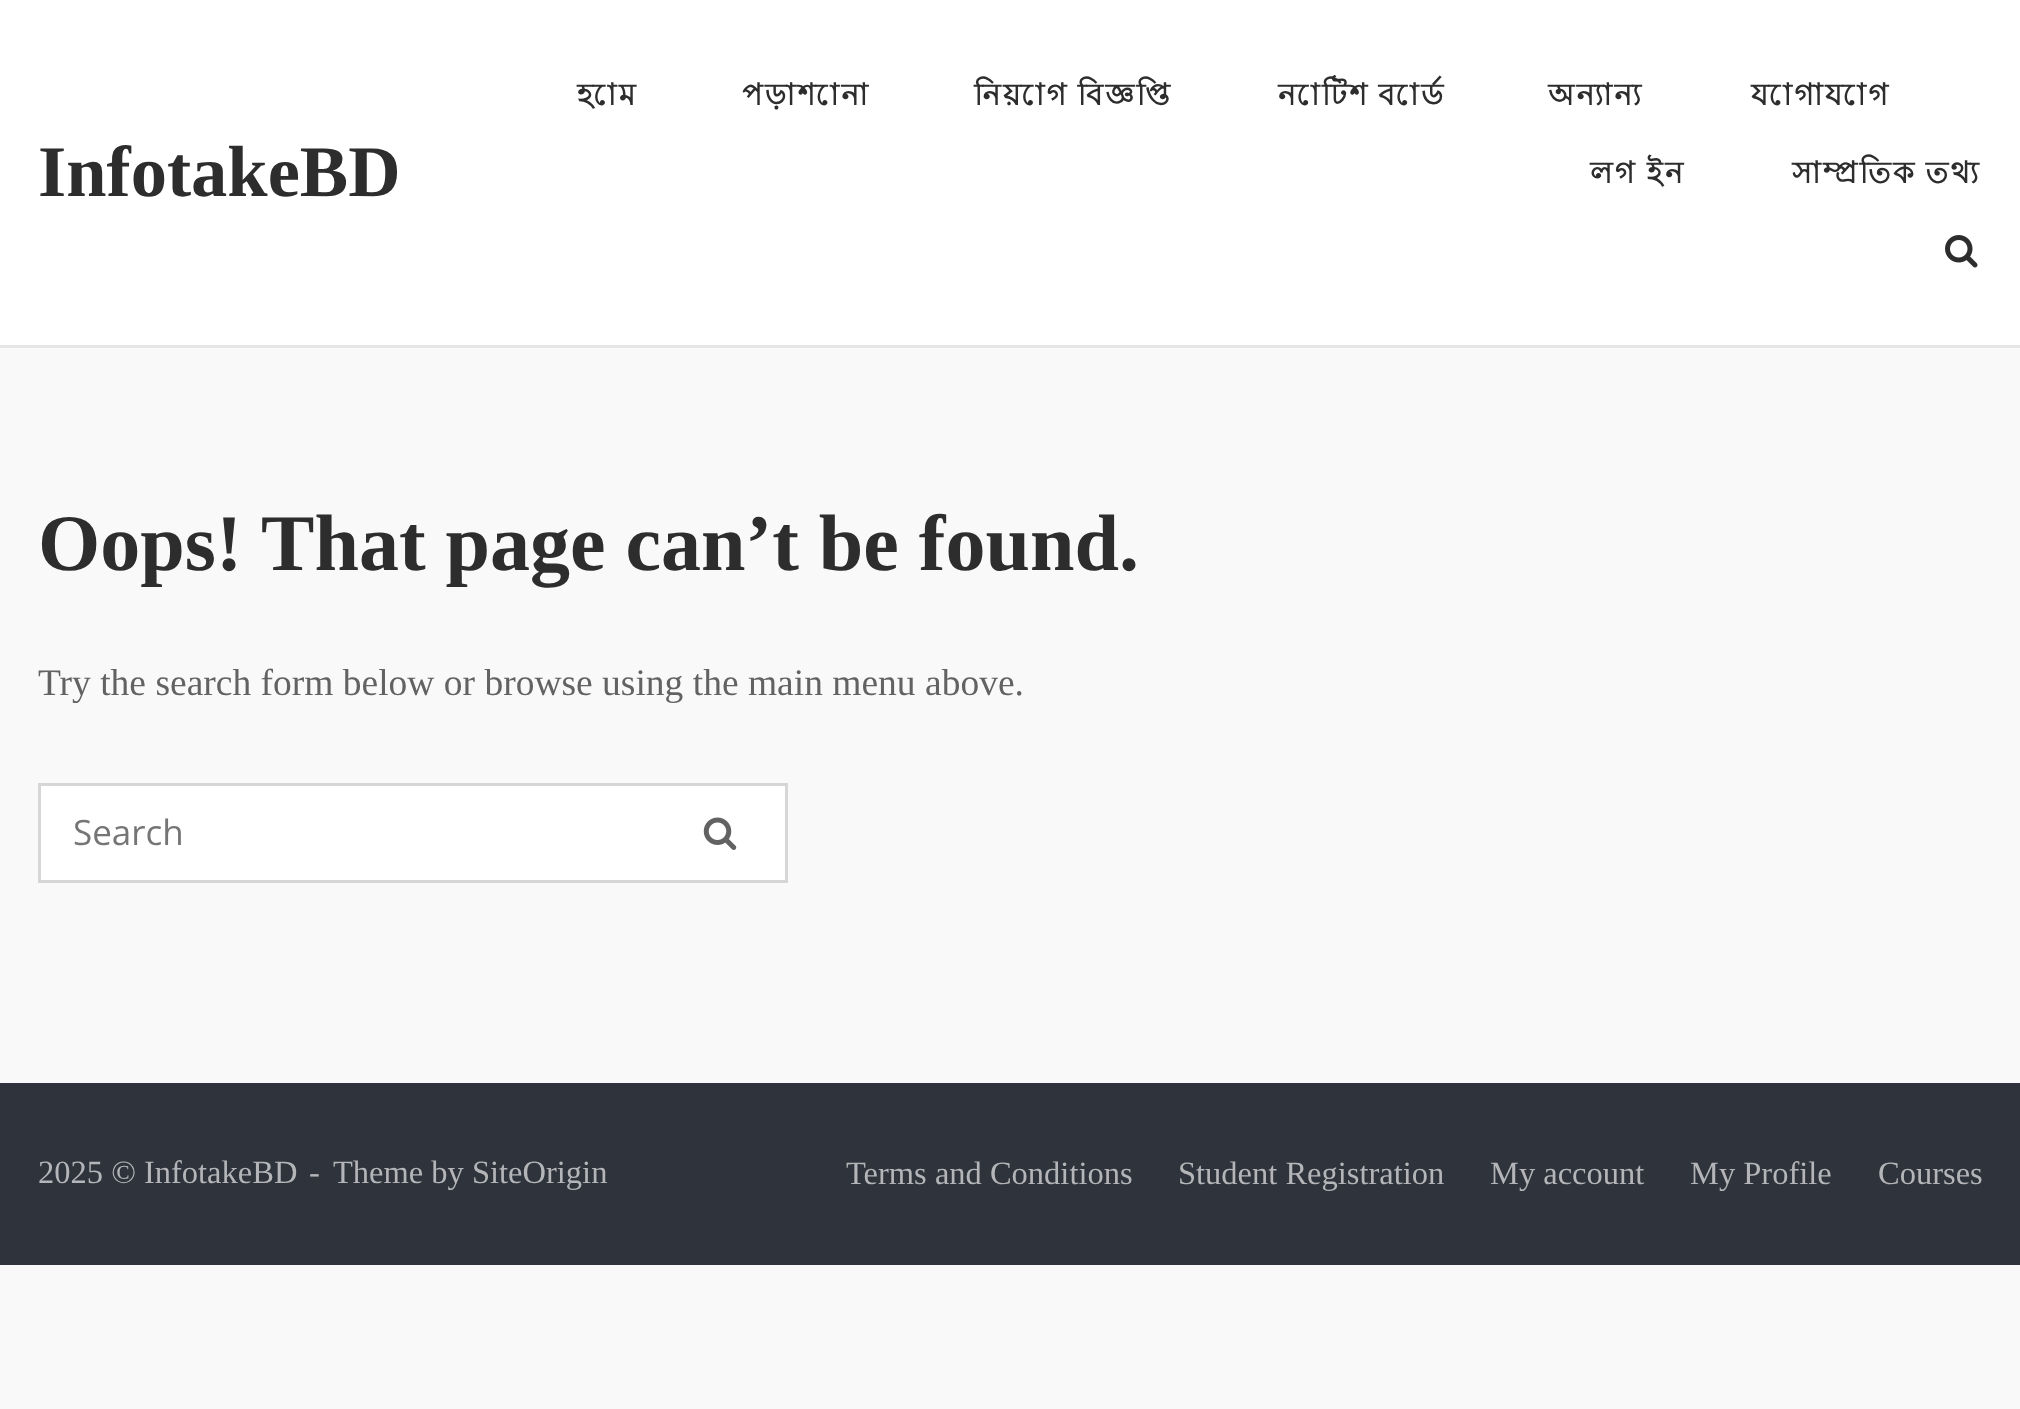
(async () => {
const canvas = document.querySelector("canvas")
canvas.width = 2020
canvas.height = 1409
const c = canvas.getContext("2d")
c.miterLimit = 4
c.fontKerning = "normal"
function T(s,x,y){c.fillText(s,x,y)}
function R(x,y,w,h){c.fillRect(x,y,w,h)}
async function I(src,x,y,w,h){const img=new Image();img.src=src;await img.decode();c.drawImage(img,x,y,w,h)}
c.fillStyle="#f9f9f9"
R(0,0,2020,1409)
c.fillStyle="#fff"
R(0,0,2020,345)
c.fillStyle="#e6e6e6"
R(0,345,2020,3)
c.font="bold 72.5px Liberation Serif"
c.fillStyle="#2d2d2d"
T("InfotakeBD",38,196)
c.letterSpacing="2.5px"
c.font="bold 30px Lohit Bengali"
T("হোম",577,105)
T("পড়াশোনা",742,105)
c.wordSpacing="-2px"
T("নিয়োগ বিজ্ঞপ্তি",974,105)
T("নোটিশ বোর্ড",1278,105)
c.wordSpacing="0px"
T("অন্যান্য",1548,105)
T("যোগাযোগ",1751,105)
c.wordSpacing="-1px"
T("লগ ইন",1590,183)
c.wordSpacing="-2px"
T("সাম্প্রতিক তথ্য",1792,183)
await I("1.png",1945,235,33,33)
c.letterSpacing="0px"
c.wordSpacing="0px"
c.font="bold 80px Liberation Serif"
T("Oops! That page can’t be found.",38,570)
c.font="37.5px Liberation Serif"
c.fillStyle="#626262"
T("Try the search form below or browse using the main menu above.",38,695)
c.fillStyle="#fff"
c.beginPath()
c.rect(39.5,784.5,747,97)
c.fill()
c.strokeStyle="#d6d6d6"
c.lineWidth=3
c.stroke()
c.font="35px Open Sans"
c.fillStyle="#757575"
T("Search",73,845)
await I("2.png",703,817,34,33)
c.fillStyle="#2f333b"
R(0,1083,2020,182)
c.font="32.5px Liberation Serif"
c.fillStyle="#b4b5b8"
T("2025 © InfotakeBD",38,1183)
T("-",309,1183)
T("Theme by SiteOrigin",333,1183)
T("Terms and Conditions",846,1184)
T("Student Registration",1178,1184)
T("My account",1490,1184)
T("My Profile",1690,1184)
T("Courses",1878,1184)
})()
